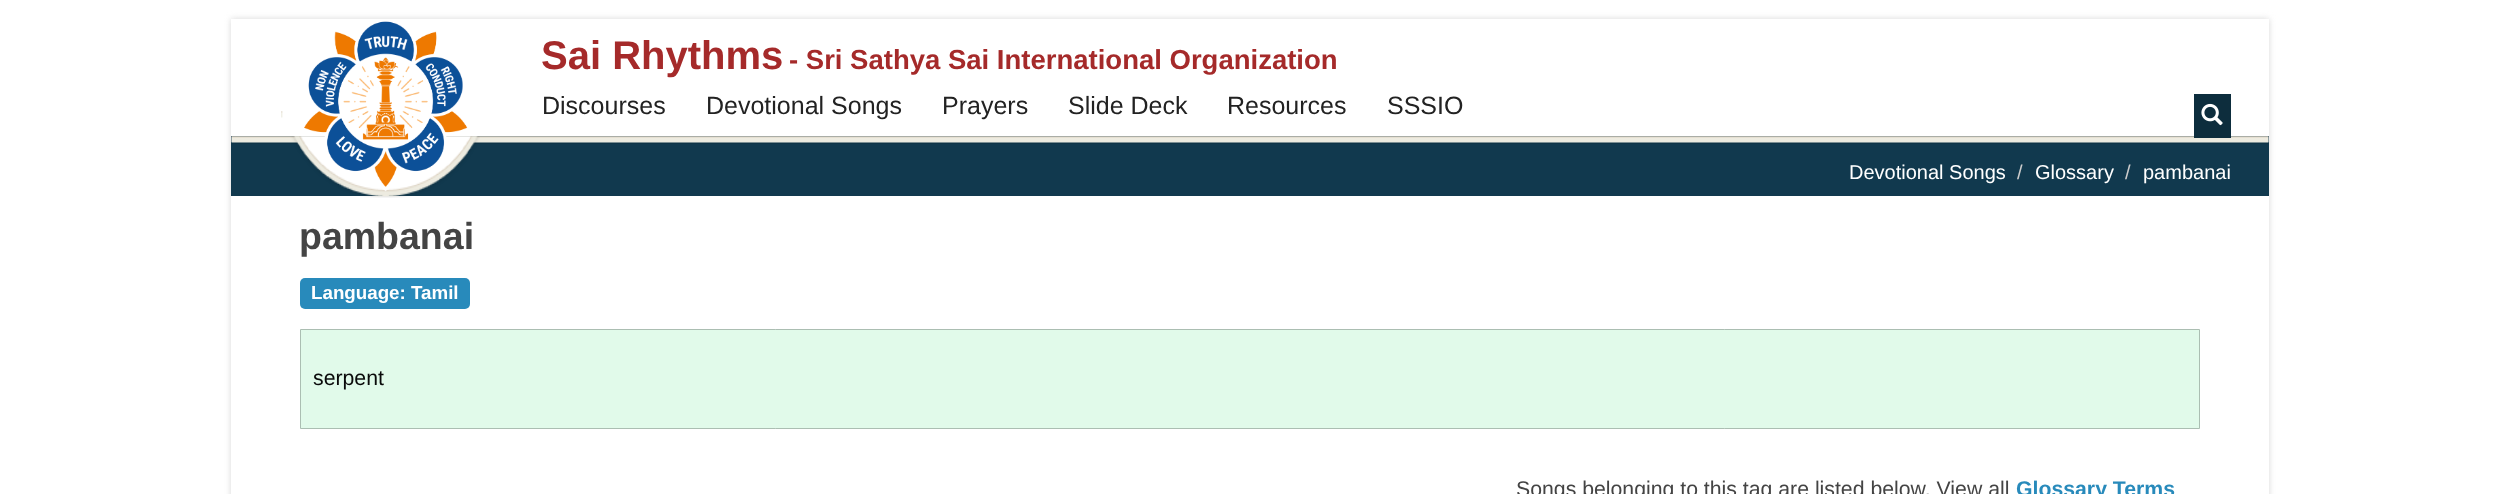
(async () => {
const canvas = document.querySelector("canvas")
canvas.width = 2498
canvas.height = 494
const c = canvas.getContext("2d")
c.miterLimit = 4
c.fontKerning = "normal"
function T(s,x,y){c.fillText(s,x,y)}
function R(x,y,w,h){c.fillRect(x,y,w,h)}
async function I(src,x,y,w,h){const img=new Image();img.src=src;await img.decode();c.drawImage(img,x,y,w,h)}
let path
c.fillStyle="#fff"
R(0,0,2498,494)
c.save()
path = new Path2D("M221 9h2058v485h-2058zm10 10h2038v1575h-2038z")
c.clip(path,"evenodd")
c.fillStyle="#d8d8d8"
c.filter="blur(3px)"
c.beginPath()
c.rect(231,19,2038,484)
c.fill()
c.filter="none"
c.restore()
c.fillStyle="#11394e"
R(231,136,2038,60)
await I("1.png",231,136,2038,8)
c.fillStyle="#fff"
R(231,19,2038,117)
await I("3.png",281,111,199,87)
await I("2.png",304,21,164,171)
c.font="bold 40px Liberation Sans"
c.fillStyle="#a52a2a"
T("Sai Rhythms",541,69)
c.font="bold 27.5px Liberation Sans"
T("- Sri Sathya Sai International Organization",789,69)
c.font="25px Liberation Sans"
c.fillStyle="#222"
T("Discourses",542,114)
T("Devotional Songs",706,114)
T("Prayers",942,114)
T("Slide Deck",1068,114)
T("Resources",1227,114)
T("SSSIO",1387,114)
c.fillStyle="#0d2d3d"
R(2194,94,37,44)
await I("4.png",2201,103,22,23)
c.font="20px Liberation Sans"
c.fillStyle="#fff"
T("Devotional Songs",1849,179)
c.fillStyle="#ccc"
T("/",2017,179)
c.fillStyle="#fff"
T("Glossary",2035,179)
c.fillStyle="#ccc"
T("/",2125,179)
c.fillStyle="#fff"
T("pambanai",2143,179)
c.font="bold 37.5px Liberation Sans"
c.fillStyle="#444"
T("pambanai",299,249)
c.fillStyle="#288abb"
c.beginPath()
c.roundRect(300,278,111,31,[5,0,0,5])
c.fill()
c.beginPath()
c.roundRect(411,278,59,31,[0,5,5,0])
c.fill()
c.font="bold 18.75px Liberation Sans"
c.fillStyle="#fff"
T("Language: Tamil",311,299)
c.fillStyle="#e1faea"
c.beginPath()
c.rect(300.5,329.5,1899,99)
c.fill()
c.strokeStyle="#abbeb2"
c.stroke()
c.font="21.25px Liberation Sans"
c.fillStyle="#0a0a0a"
T("serpent",313,385)
c.fillStyle="#444"
T("Songs belonging to this tag are listed below. View all",1516,496)
c.font="bold 21.25px Liberation Sans"
c.fillStyle="#288abb"
T("Glossary Terms",2016,496)
})()
